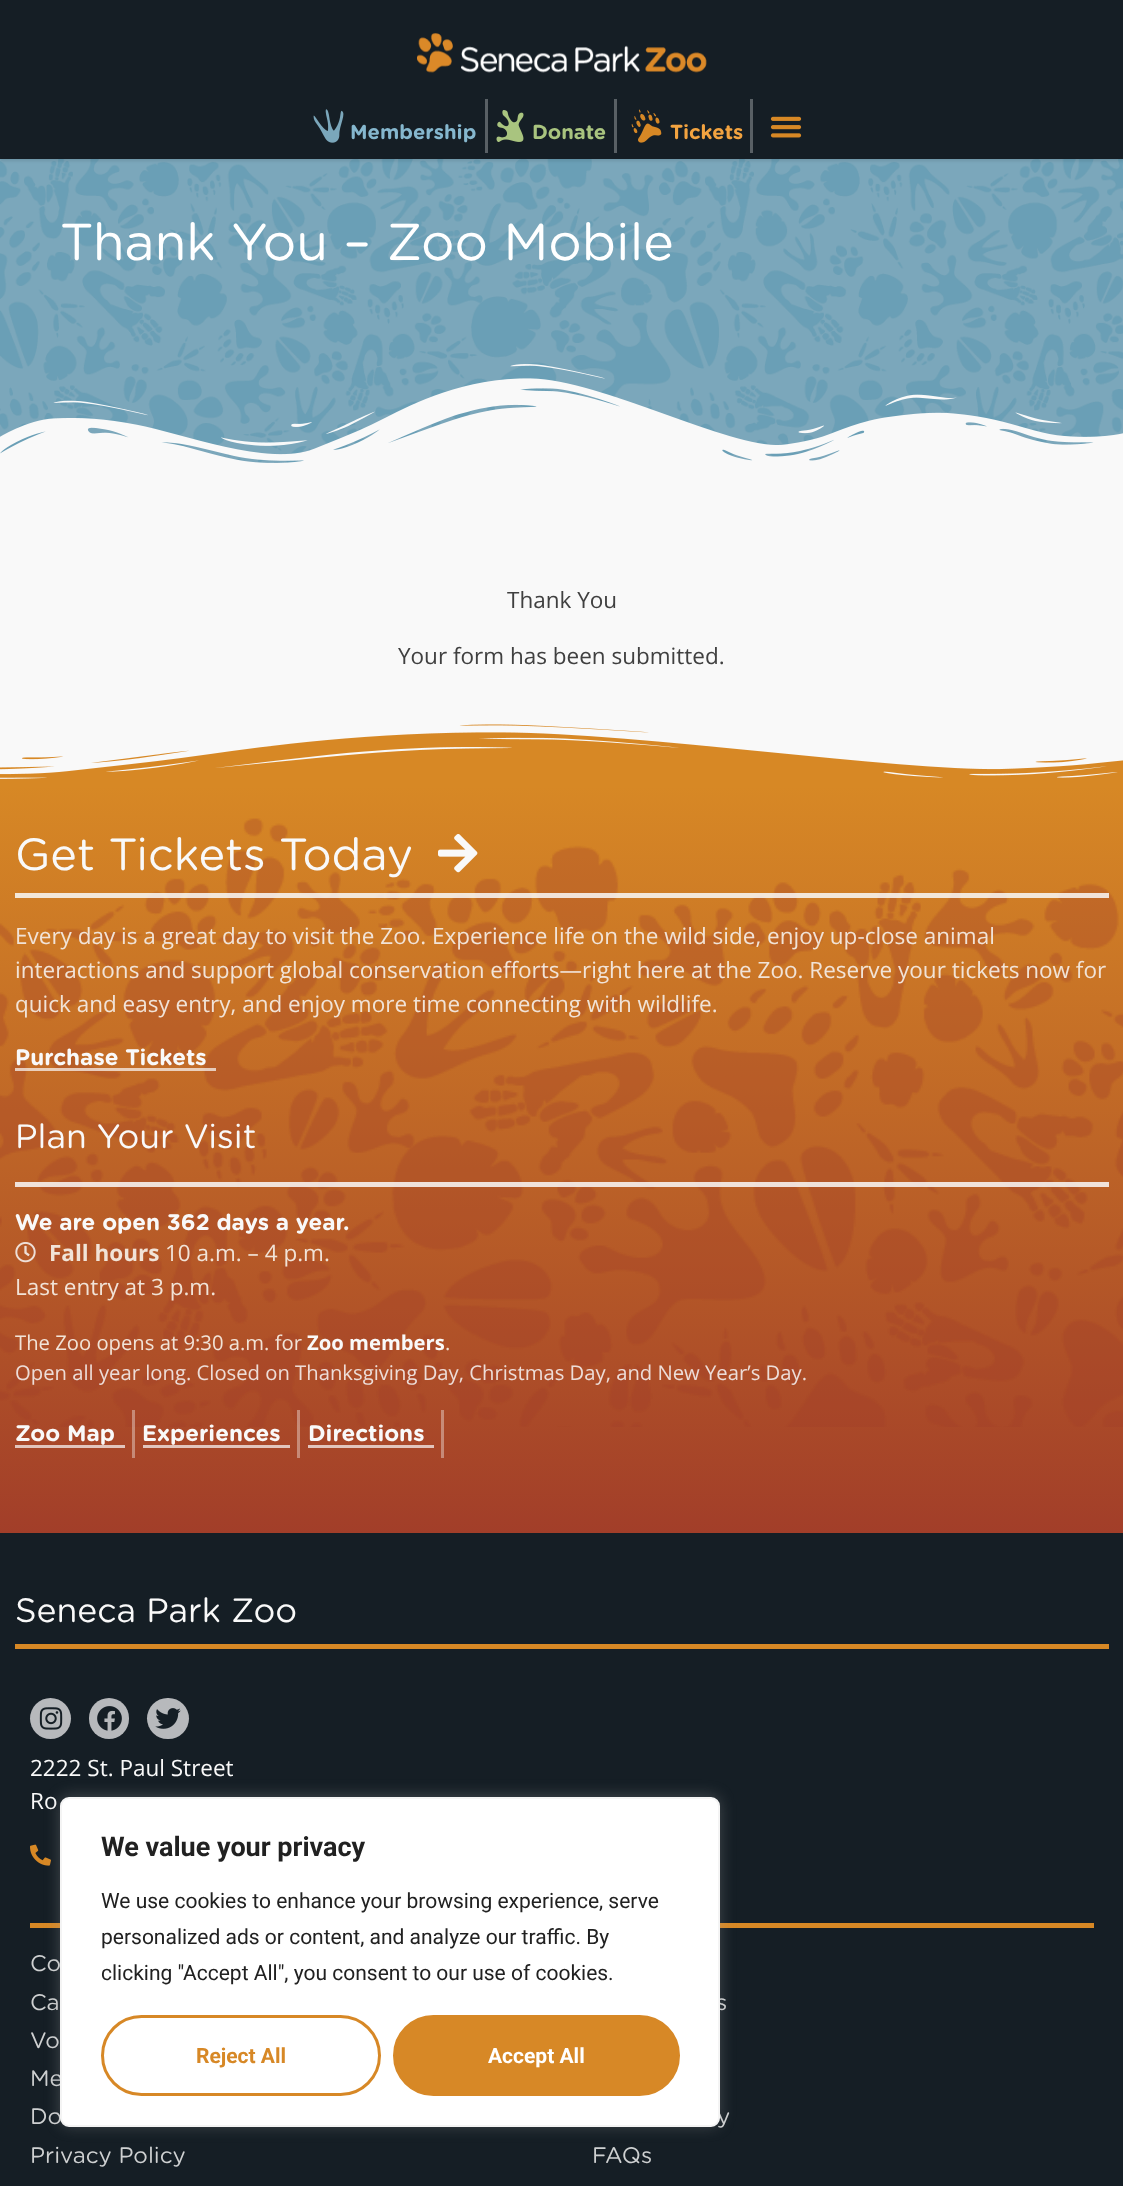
(async () => {
const canvas = document.querySelector("canvas")
canvas.width = 1123
canvas.height = 2186
const c = canvas.getContext("2d")
c.miterLimit = 4
c.fontKerning = "normal"
function T(s,x,y){c.fillText(s,x,y)}
function R(x,y,w,h){c.fillRect(x,y,w,h)}
function Q(x,y,w,h,r){c.beginPath();c.roundRect(x,y,w,h,r);c.fill()}
async function I(src,x,y,w,h){const img=new Image();img.src=src;await img.decode();c.drawImage(img,x,y,w,h)}
let gradient
c.fillStyle="#f9f9f9"
R(0,0,1123,2186)
c.fillStyle="#7ba7bb"
R(0,159,1123,304)
await I("6.png",0,159,1123,304)
c.fillStyle="#0000001a"
c.filter="blur(1.5px)"
c.beginPath()
c.rect(0,2,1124,159)
c.fill()
c.filter="none"
c.fillStyle="#151e25"
R(0,0,1123,159)
await I("1.png",417,33,290,40)
await I("2.png",313,109,31,34)
c.font="bold 20.25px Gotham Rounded"
c.fillStyle="#85b7ce"
T("Membership",350,139)
c.fillStyle="#596065"
R(614,99,3,54)
R(485,99,3,54)
await I("3.png",496,110,28,32)
c.fillStyle="#a9c47f"
T("Donate",532,139)
c.fillStyle="#596065"
R(750,99,3,54)
await I("4.png",631,109,31,34)
c.fillStyle="#f2a340"
T("Tickets",670,139)
await I("5.png",770,116,32,22)
c.font="51.75px Gotham Rounded"
c.fillStyle="#fff"
T("Thank You – Zoo Mobile",60,260)
await I("7.png",0,364,1123,113)
c.font="22.5px Open Sans"
c.fillStyle="#404040"
T("Thank You",507,608)
T("Your form has been submitted.",398,664)
await I("8.png",0,724,1123,62)
gradient = c.createLinearGradient(562,786,562,1533)
gradient.addColorStop(0,"#d78825")
gradient.addColorStop(1,"#a23e29")
c.fillStyle = gradient
R(0,786,1123,747)
gradient = c.createLinearGradient(562,786,562,1533)
gradient.addColorStop(0,"#e4b376")
gradient.addColorStop(1,"#c38578")
c.fillStyle = gradient
R(441,1410,3,48)
await I("9.png",0,818,1123,609)
c.font="45px Gotham Rounded"
c.fillStyle="#f9f9f9"
T("Get Tickets Today",15,870)
await I("10.png",438,834,40,39)
c.fillStyle="#f9f9f9d9"
R(15,893,1094,5)
c.font="22.5px Open Sans"
c.fillStyle="#f1e3d7"
T("Every day is a great day to visit the Zoo. Experience life on the wild side, enjoy up-close animal",15,944)
T("interactions and support global conservation efforts—right here at the Zoo. Reserve your tickets now for",15,978)
T("quick and easy entry, and enjoy more time connecting with wildlife.",15,1012)
c.fillStyle="#f9f9f9b5"
R(15,1068,201,3)
c.font="bold 22.5px Gotham Rounded"
c.fillStyle="#f9f9f9"
T("Purchase Tickets",15,1065)
c.font="33.75px Gotham Rounded"
T("Plan Your Visit",15,1148)
c.fillStyle="#f9f9f9d9"
R(15,1182,1094,5)
c.font="bold 22.5px Gotham Rounded"
c.fillStyle="#f9f9f9"
T("We are open 362 days a year.",15,1230)
await I("11.png",15,1242,21,21)
c.font="bold 22.5px Open Sans"
c.fillStyle="#f1e3d7"
T("Fall hours",49,1261)
c.font="22.5px Open Sans"
T("10 a.m. – 4 p.m.",165,1261)
T("Last entry at 3 p.m.",15,1295)
c.font="20.25px Open Sans"
T("The Zoo opens at 9:30 a.m. for",15,1350)
c.font="bold 20.25px Open Sans"
c.fillStyle="#f9f9f9"
T("Zoo members",307,1350)
c.font="20.25px Open Sans"
c.fillStyle="#f1e3d7"
T(".",445,1350)
c.fillStyle="#edddd8"
T("Open all year long. Closed on Thanksgiving Day, Christmas Day, and New Year’s Day.",15,1380)
c.fillStyle="#f9f9f961"
R(132,1410,3,48)
c.fillStyle="#e2c5bd"
R(15,1445,110,3)
c.font="bold 22.5px Gotham Rounded"
c.fillStyle="#f9f9f9"
T("Zoo Map",15,1441)
c.fillStyle="#f9f9f961"
R(297,1410,3,48)
c.fillStyle="#e2c5bd"
R(143,1445,147,3)
c.fillStyle="#f9f9f9"
T("Experiences",142,1441)
c.fillStyle="#e2c5bd"
R(308,1445,126,3)
c.fillStyle="#f9f9f9"
T("Directions",308,1441)
c.fillStyle="#151e25"
R(0,1533,1123,653)
c.font="33.75px Gotham Rounded"
c.fillStyle="#f9f9f9"
T("Seneca Park Zoo",15,1622)
c.fillStyle="#d78825"
R(15,1644,1094,5)
c.fillStyle="#b7b9bc"
c.beginPath()
c.arc(50.5,1718.5,20.5,0,7)
c.fill()
await I("12.png",39,1707,24,23)
Q(89,1698,40,41,20)
await I("13.png",97,1706,25,25)
Q(147,1698,42,41,20.5)
await I("14.png",155,1708,26,21)
c.font="22.5px Open Sans"
c.fillStyle="#f9f9f9"
T("2222 St. Paul Street",30,1776)
T("Ro",30,1809)
await I("15.png",30,1844,21,22)
c.fillStyle="#d78825"
R(30,1923,30,5)
c.font="22.5px Gotham Rounded"
c.fillStyle="#ced0d1"
T("Co",30,1971)
T("Ca",30,2010)
T("Vo",30,2048)
T("Me",30,2086)
T("Do",30,2124)
T("Privacy Policy",30,2163)
c.fillStyle="#d78825"
R(720,1923,374,5)
c.fillStyle="#ced0d1"
T("s",716,2010)
T("y",717,2124)
T("FAQs",592,2163)
c.fillStyle="#acabab4d"
c.filter="blur(7.5px)"
c.beginPath()
c.roundRect(60,1796,660,330,9)
c.fill()
c.filter="none"
c.fillStyle="#fff"
c.beginPath()
c.roundRect(61,1798,658,328,8)
c.fill()
c.strokeStyle="#f4f4f4"
c.lineWidth=2
c.stroke()
c.font="bold 27px Roboto"
c.fillStyle="#212121"
T("We value your privacy",101,1856)
c.font="21px Roboto"
T("We use cookies to enhance your browsing experience, serve",101,1908)
T("personalized ads or content, and analyze our traffic. By",101,1944)
T("clicking \"Accept All\", you consent to our use of cookies.",101,1980)
c.beginPath()
c.roundRect(102.5,2016.5,277,78,39)
c.strokeStyle="#d78826"
c.lineWidth=3
c.stroke()
c.font="bold 21px Roboto"
c.fillStyle="#d78826"
T("Reject All",196,2063)
c.beginPath()
c.roundRect(394.5,2016.5,284,78,39)
c.fill()
c.stroke()
c.fillStyle="#fff"
T("Accept All",488,2063)
})()
